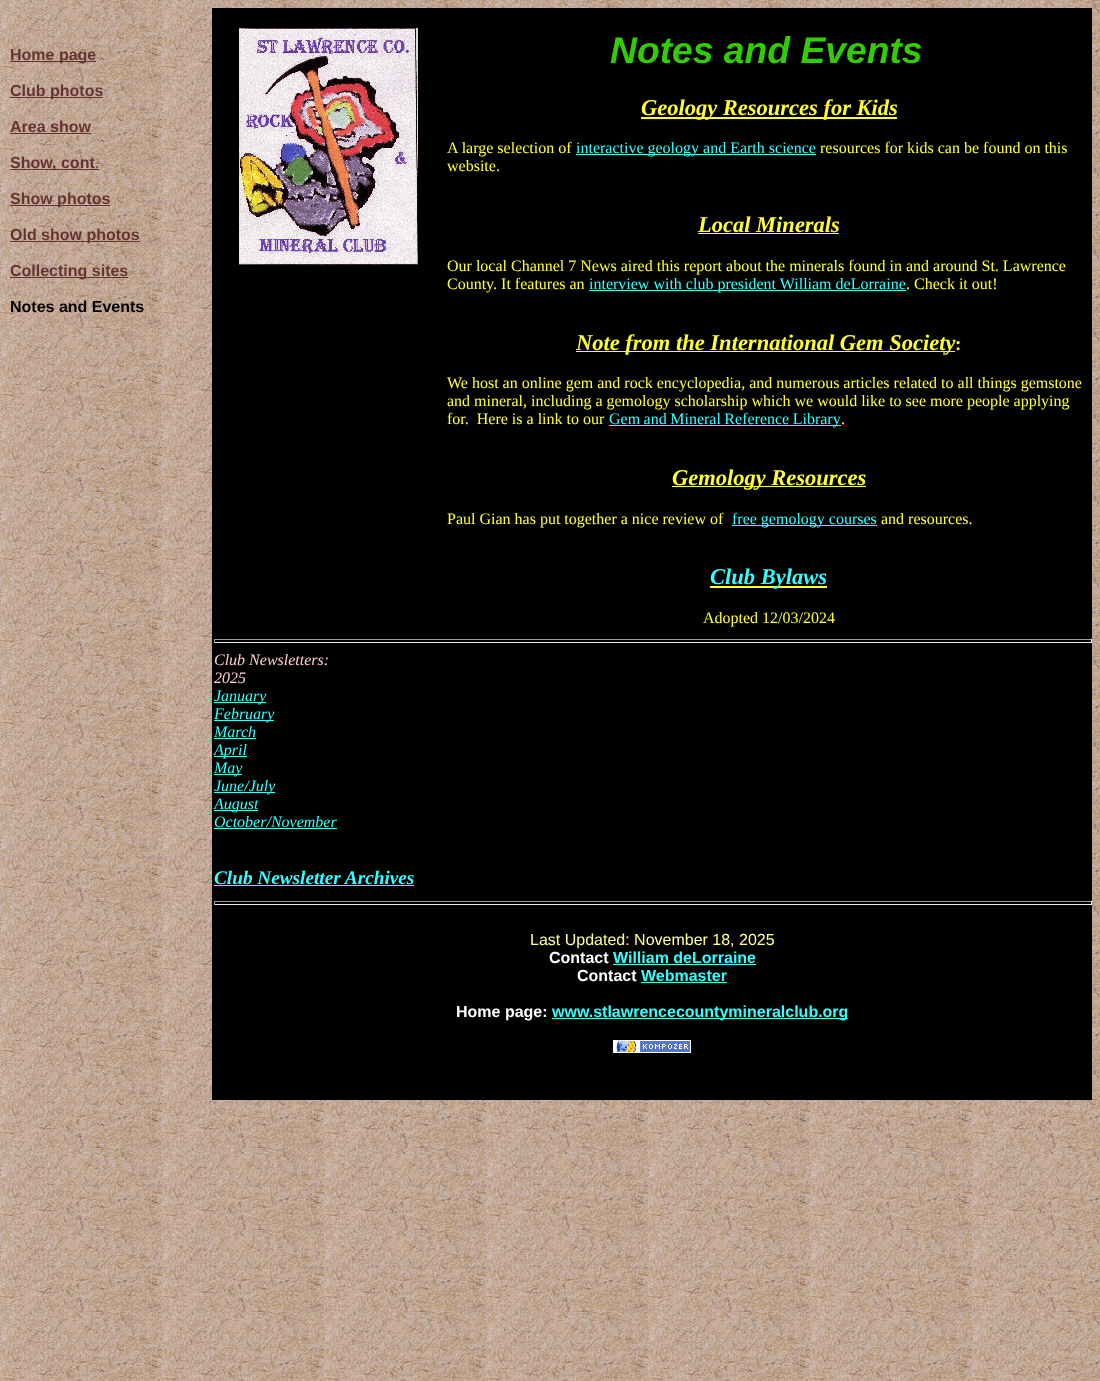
(async () => {
const canvas = document.querySelector("canvas")
canvas.width = 1100
canvas.height = 1381
const c = canvas.getContext("2d")
c.miterLimit = 4
c.fontKerning = "normal"
function T(s,x,y){c.fillText(s,x,y)}
function R(x,y,w,h){c.fillRect(x,y,w,h)}
async function I(src,x,y,w,h){const img=new Image();img.src=src;await img.decode();c.drawImage(img,x,y,w,h)}
c.fillStyle="#fff"
R(0,0,1100,1381)
await I("1.png",0,0,1100,1381)
c.fillStyle="#633"
R(10,61,86,1)
c.font="bold 16px Liberation Sans"
T("Home page",10,60)
R(10,97,93,1)
T("Club photos",10,96)
T("Area show",10,132)
R(10,133,81,1)
R(10,169,89,1)
T("Show, cont",10,168)
c.font="16px Liberation Serif"
T(".",95,168)
R(10,205,100,1)
c.font="bold 16px Liberation Sans"
T("Show photos",10,204)
R(10,241,130,1)
T("Old show photos",10,240)
R(10,277,118,1)
T("Collecting sites",10,276)
c.fillStyle="#000"
T("Notes and Events",10,312)
R(212,8,229,621)
await I("2.png",239,28,179,237)
R(441,8,651,66)
c.font="italic bold 37.25px Liberation Sans"
c.fillStyle="#3c0"
T("Notes and Events",610,63)
c.fillStyle="#000"
R(441,74,651,555)
c.fillStyle="#ff3"
R(641,117,256,2)
c.font="italic bold 22.5px Liberation Serif"
T("Geology Resources for Kids",641,115)
c.font="16px Liberation Serif"
T("A large selection of",447,153)
c.fillStyle="#3ff"
R(576,154,240,1)
T("interactive geology and Earth science",576,153)
c.fillStyle="#ff3"
T("resources for kids can be found on this",820,153)
T("website.",447,171)
c.font="italic bold 22.5px Liberation Serif"
T("Local Minerals",698,232)
R(698,233,141,1)
c.font="16px Liberation Serif"
T("Our local Channel 7 News aired this report about the minerals found in and around St. Lawrence",447,271)
T("County. It features an",447,289)
c.fillStyle="#3ff"
R(589,290,317,1)
T("interview with club president William deLorraine",589,289)
c.fillStyle="#ff3"
T(". Check it out!",906,289)
R(576,351,379,1)
c.font="italic bold 22.5px Liberation Serif"
T("Note from the International Gem Society",576,350)
c.font="bold 19px Liberation Serif"
T(":",955,350)
c.font="16px Liberation Serif"
T("We host an online gem and rock encyclopedia, and numerous articles related to all things gemstone",447,388)
T("and mineral, including a gemology scholarship which we would like to see more people applying",447,406)
T("for.  Here is a link to our",447,424)
c.fillStyle="#3ff"
R(609,425,232,1)
c.wordSpacing="-0.5px"
T("Gem and Mineral Reference Library",609,424)
c.wordSpacing="0px"
c.fillStyle="#ff3"
T(".",841,424)
R(672,486,194,1)
c.font="italic bold 22.5px Liberation Serif"
T("Gemology Resources",672,485)
c.font="16px Liberation Serif"
T("Paul Gian has put together a nice review of",447,524)
c.fillStyle="#3ff"
R(732,525,145,1)
T("free gemology courses",732,524)
c.fillStyle="#ff3"
T("and resources.",881,524)
R(710,586,117,2)
c.font="italic bold 22.5px Liberation Serif"
c.fillStyle="#3ff"
T("Club Bylaws",710,584)
c.font="16px Liberation Serif"
c.fillStyle="#ff3"
T("Adopted 12/03/2024",703,623)
c.fillStyle="#000"
R(212,629,880,471)
c.fillStyle="#9f9f9f"
R(214,639,878,1)
c.fillStyle="#eee"
R(1091,639,1,4)
R(214,642,878,1)
c.fillStyle="#9f9f9f"
R(214,639,1,4)
c.font="italic 16px Liberation Serif"
c.fillStyle="#fcc"
T("Club Newsletters:",214,665)
T("2025",214,683)
c.fillStyle="#3ff"
R(214,702,52,1)
T("January",214,701)
R(214,720,60,1)
T("February",214,719)
T("March",214,737)
R(214,738,42,1)
R(214,756,33,1)
T("April",214,755)
R(214,774,28,1)
T("May",214,773)
R(214,792,61,1)
T("June/July",214,791)
R(214,810,44,1)
T("August",214,809)
T("October/November",214,827)
R(214,828,123,1)
c.font="italic bold 19.25px Liberation Serif"
T("Club Newsletter Archives",214,884)
R(214,885,200,1)
c.fillStyle="#9f9f9f"
R(214,901,878,1)
c.fillStyle="#eee"
R(1091,901,1,4)
R(214,904,878,1)
c.fillStyle="#9f9f9f"
R(214,901,1,4)
c.font="16px Liberation Sans"
c.fillStyle="#ff9"
T("Last Updated: November 18, 2025",530,945)
c.font="bold 16px Liberation Sans"
c.fillStyle="#fff"
T("Contact",549,963)
c.fillStyle="#3ff"
T("William deLorraine",613,963)
R(613,964,143,1)
c.fillStyle="#fff"
T("Contact",577,981)
c.fillStyle="#3ff"
T("Webmaster",641,981)
R(641,982,86,1)
c.fillStyle="#fff"
T("Home page:",456,1017)
c.fillStyle="#3ff"
R(552,1018,296,1)
T("www.stlawrencecountymineralclub.org",552,1017)
await I("3.png",613,1040,78,13)
})()
